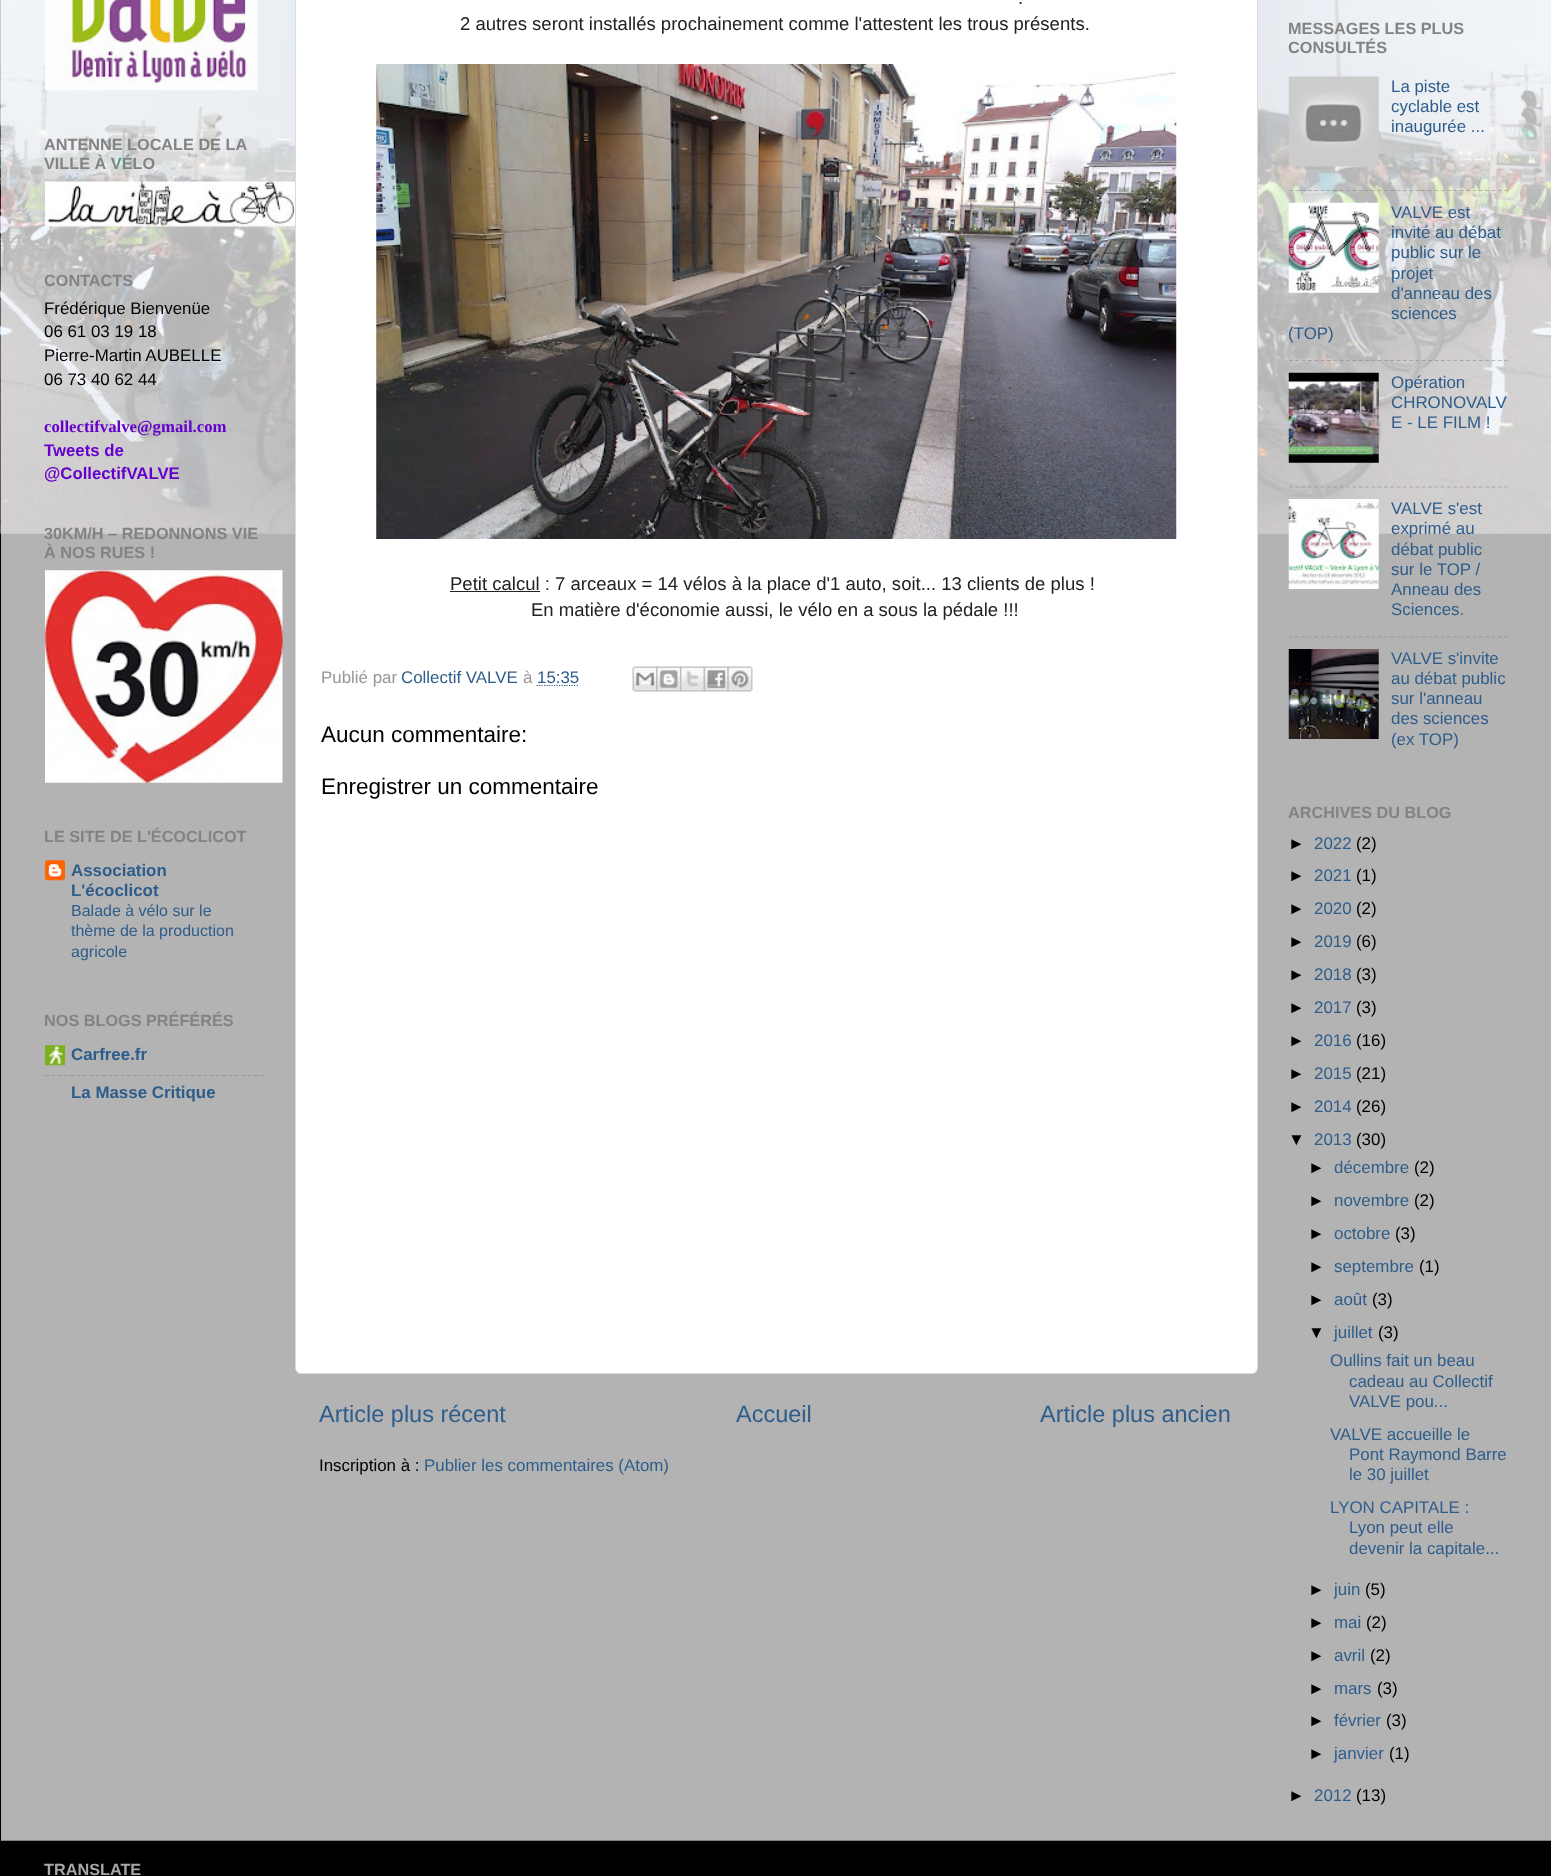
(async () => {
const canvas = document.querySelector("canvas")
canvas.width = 1551
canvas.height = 1876
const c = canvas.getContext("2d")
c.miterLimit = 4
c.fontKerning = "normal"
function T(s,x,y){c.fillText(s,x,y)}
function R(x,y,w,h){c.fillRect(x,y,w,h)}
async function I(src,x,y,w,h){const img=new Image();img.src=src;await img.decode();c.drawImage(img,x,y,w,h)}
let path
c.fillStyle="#000"
R(0,0,1551,1876)
await I("1.png",0,0,1551,534)
c.save()
path = new Path2D("M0 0h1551v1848h-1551zm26-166h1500c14 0 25 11 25 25v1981h-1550v-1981c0-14 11-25 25-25z")
c.clip(path,"evenodd")
c.fillStyle="#00000026"
c.filter="blur(2px)"
c.beginPath()
c.roundRect(1,-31,1550,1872,25)
c.fill()
c.filter="none"
c.restore()
c.fillStyle="#ffffffb3"
R(1,0,1550,1841)
await I("2.png",45,0,213,91)
c.font="bold 16.25px Liberation Sans"
c.fillStyle="#838383"
T("ANTENNE LOCALE DE LA",44,150)
T("VILLE À VÉLO",44,169)
await I("3.png",45,181,250,46)
T("CONTACTS",44,286)
c.font="16.9px Liberation Sans"
c.fillStyle="#000"
T("Frédérique Bienvenüe",44,314)
T("06 61 03 19 18",44,337)
T("Pierre-Martin AUBELLE",44,361)
T("06 73 40 62 44",44,385)
c.font="bold 16.75px Liberation Serif"
c.fillStyle="#60c"
T("collectifvalve@gmail.com",44,432)
c.font="bold 16.75px Liberation Sans"
T("Tweets de",44,456)
T("@CollectifVALVE",44,479)
c.font="bold 16.25px Liberation Sans"
c.fillStyle="#838383"
T("30KM/H – REDONNONS VIE",44,539)
T("À NOS RUES !",44,558)
await I("4.png",45,570,238,213)
T("LE SITE DE L'ÉCOCLICOT",44,842)
await I("5.png",45,860,20,21)
c.font="bold 16.9px Liberation Sans"
c.fillStyle="#2e5d8b"
T("Association",71,876)
T("L'écoclicot",71,896)
c.font="16px Liberation Sans"
T("Balade à vélo sur le",71,916)
T("thème de la production",71,936)
T("agricole",71,957)
c.font="bold 16.25px Liberation Sans"
c.fillStyle="#838383"
T("NOS BLOGS PRÉFÉRÉS",44,1026)
await I("6.png",45,1045,20,21)
c.font="bold 16.9px Liberation Sans"
c.fillStyle="#2e5d8b"
T("Carfree.fr",71,1060)
path = new Path2D("M45 1075.5h219")
c.strokeStyle="#999"
c.lineWidth=1.2
c.setLineDash([3.75,2.58])
c.stroke(path)
T("La Masse Critique",71,1098)
c.fillStyle="#fff"
c.beginPath()
c.roundRect(295.5,-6.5,962,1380,5.5)
c.fill()
c.strokeStyle="#dbdbdb"
c.lineWidth=1
c.setLineDash([])
c.stroke()
c.font="18.55px Liberation Sans"
c.fillStyle="#222"
T(".",1018,4)
T("2 autres seront installés prochainement comme l'attestent les trous présents.",460,30)
await I("7.png",376,64,801,475)
R(450,591,90,1)
T("Petit calcul : 7 arceaux = 14 vélos à la place d'1 auto, soit... 13 clients de plus !",450,590)
T("En matière d'économie aussi, le vélo en a sous la pédale !!!",531,616)
c.font="16.9px Liberation Sans"
c.fillStyle="#959595"
T("Publié par",321,683)
c.fillStyle="#2e5d8b"
T("Collectif VALVE",401,683)
c.fillStyle="#959595"
T("à",523,683)
c.fillStyle="#2e5d8b"
T("15:35",537,683)
path = new Path2D("M536.5 685.5h42.5")
c.strokeStyle="#2e5d8b"
c.lineWidth=1.2
c.setLineDash([1.25,1.25])
c.stroke(path)
await I("8.png",632,666,26,26)
await I("9.png",656,666,26,26)
await I("10.png",680,666,25,26)
await I("11.png",703,666,26,26)
await I("12.png",727,666,26,26)
c.font="22.5px Liberation Sans"
c.fillStyle="#000"
T("Aucun commentaire:",321,742)
T("Enregistrer un commentaire",321,794)
c.font="23.5px Liberation Sans"
c.fillStyle="#2e5d8b"
T("Article plus récent",319,1422)
T("Accueil",736,1422)
T("Article plus ancien",1040,1422)
c.font="16.9px Liberation Sans"
c.fillStyle="#000"
T("Inscription à :",319,1471)
c.fillStyle="#2e5d8b"
T("Publier les commentaires (Atom)",424,1471)
c.font="bold 16.25px Liberation Sans"
c.fillStyle="#838383"
T("MESSAGES LES PLUS",1288,34)
T("CONSULTÉS",1288,53)
await I("13.png",1288,76,91,91)
c.font="16.9px Liberation Sans"
c.fillStyle="#2e5d8b"
T("La piste",1391,92)
T("cyclable est",1391,112)
T("inaugurée ...",1391,132)
path = new Path2D("M1289 190.5h218.5")
c.strokeStyle="#80808080"
c.setLineDash([3.75,2.58])
c.stroke(path)
await I("14.png",1288,202,91,91)
T("VALVE est",1391,218)
T("invité au débat",1391,238)
T("public sur le",1391,258)
T("projet",1391,279)
T("d'anneau des",1391,299)
T("sciences",1391,319)
T("(TOP)",1288,339)
path = new Path2D("M1289 360.5h218.5")
c.stroke(path)
await I("15.png",1288,372,91,91)
T("Opération",1391,388)
T("CHRONOVALV",1391,408)
T("E - LE FILM !",1391,428)
path = new Path2D("M1289 487h218.5")
c.stroke(path)
await I("16.png",1288,499,91,90)
T("VALVE s'est",1391,514)
T("exprimé au",1391,534)
T("débat public",1391,555)
T("sur le TOP /",1391,575)
T("Anneau des",1391,595)
T("Sciences.",1391,615)
path = new Path2D("M1289 637h218.5")
c.strokeStyle="#999"
c.stroke(path)
await I("17.png",1288,649,91,90)
T("VALVE s'invite",1391,664)
T("au débat public",1391,684)
T("sur l'anneau",1391,704)
T("des sciences",1391,724)
T("(ex TOP)",1391,745)
c.font="bold 16.25px Liberation Sans"
c.fillStyle="#838383"
T("ARCHIVES DU BLOG",1288,818)
c.font="16.9px Liberation Sans"
c.fillStyle="#000"
T("►",1288,849)
c.fillStyle="#2e5d8b"
T("2022",1314,849)
c.fillStyle="#000"
T("(2)",1356,849)
T("►",1288,881)
c.fillStyle="#2e5d8b"
T("2021",1314,881)
c.fillStyle="#000"
T("(1)",1356,881)
T("►",1288,914)
c.fillStyle="#2e5d8b"
T("2020",1314,914)
c.fillStyle="#000"
T("(2)",1356,914)
T("►",1288,947)
c.fillStyle="#2e5d8b"
T("2019",1314,947)
c.fillStyle="#000"
T("(6)",1356,947)
T("►",1288,980)
c.fillStyle="#2e5d8b"
T("2018",1314,980)
c.fillStyle="#000"
T("(3)",1356,980)
T("►",1288,1013)
c.fillStyle="#2e5d8b"
T("2017",1314,1013)
c.fillStyle="#000"
T("(3)",1356,1013)
T("►",1288,1046)
c.fillStyle="#2e5d8b"
T("2016",1314,1046)
c.fillStyle="#000"
T("(16)",1356,1046)
T("►",1288,1079)
c.fillStyle="#2e5d8b"
T("2015",1314,1079)
c.fillStyle="#000"
T("(21)",1356,1079)
T("►",1288,1112)
c.fillStyle="#2e5d8b"
T("2014",1314,1112)
c.fillStyle="#000"
T("(26)",1356,1112)
T("▼",1288,1145)
c.fillStyle="#2e5d8b"
T("2013",1314,1145)
c.fillStyle="#000"
T("(30)",1356,1145)
T("►",1308,1173)
c.fillStyle="#2e5d8b"
T("décembre",1334,1173)
c.fillStyle="#000"
T("(2)",1414,1173)
T("►",1308,1206)
c.fillStyle="#2e5d8b"
T("novembre",1334,1206)
c.fillStyle="#000"
T("(2)",1414,1206)
T("►",1308,1239)
c.fillStyle="#2e5d8b"
T("octobre",1334,1239)
c.fillStyle="#000"
T("(3)",1395,1239)
T("►",1308,1272)
c.fillStyle="#2e5d8b"
T("septembre",1334,1272)
c.fillStyle="#000"
T("(1)",1419,1272)
T("►",1308,1305)
c.fillStyle="#2e5d8b"
T("août",1334,1305)
c.fillStyle="#000"
T("(3)",1372,1305)
T("▼",1308,1338)
c.fillStyle="#2e5d8b"
T("juillet",1334,1338)
c.fillStyle="#000"
T("(3)",1378,1338)
c.fillStyle="#2e5d8b"
T("Oullins fait un beau",1330,1366)
T("cadeau au Collectif",1349,1387)
T("VALVE pou...",1349,1407)
T("VALVE accueille le",1330,1440)
T("Pont Raymond Barre",1349,1460)
T("le 30 juillet",1349,1480)
T("LYON CAPITALE :",1330,1513)
T("Lyon peut elle",1349,1533)
T("devenir la capitale...",1349,1554)
c.fillStyle="#000"
T("►",1308,1595)
c.fillStyle="#2e5d8b"
T("juin",1334,1595)
c.fillStyle="#000"
T("(5)",1365,1595)
T("►",1308,1628)
c.fillStyle="#2e5d8b"
T("mai",1334,1628)
c.fillStyle="#000"
T("(2)",1366,1628)
T("►",1308,1661)
c.fillStyle="#2e5d8b"
T("avril",1334,1661)
c.fillStyle="#000"
T("(2)",1370,1661)
T("►",1308,1694)
c.fillStyle="#2e5d8b"
T("mars",1334,1694)
c.fillStyle="#000"
T("(3)",1377,1694)
T("►",1308,1726)
c.fillStyle="#2e5d8b"
T("février",1334,1726)
c.fillStyle="#000"
T("(3)",1386,1726)
T("►",1308,1759)
c.fillStyle="#2e5d8b"
T("janvier",1334,1759)
c.fillStyle="#000"
T("(1)",1389,1759)
T("►",1288,1801)
c.fillStyle="#2e5d8b"
T("2012",1314,1801)
c.fillStyle="#000"
T("(13)",1356,1801)
await I("18.png",1,1840,1550,1)
c.font="bold 16.25px Liberation Sans"
c.fillStyle="#a7a7a7"
T("TRANSLATE",44,1875)
})()
